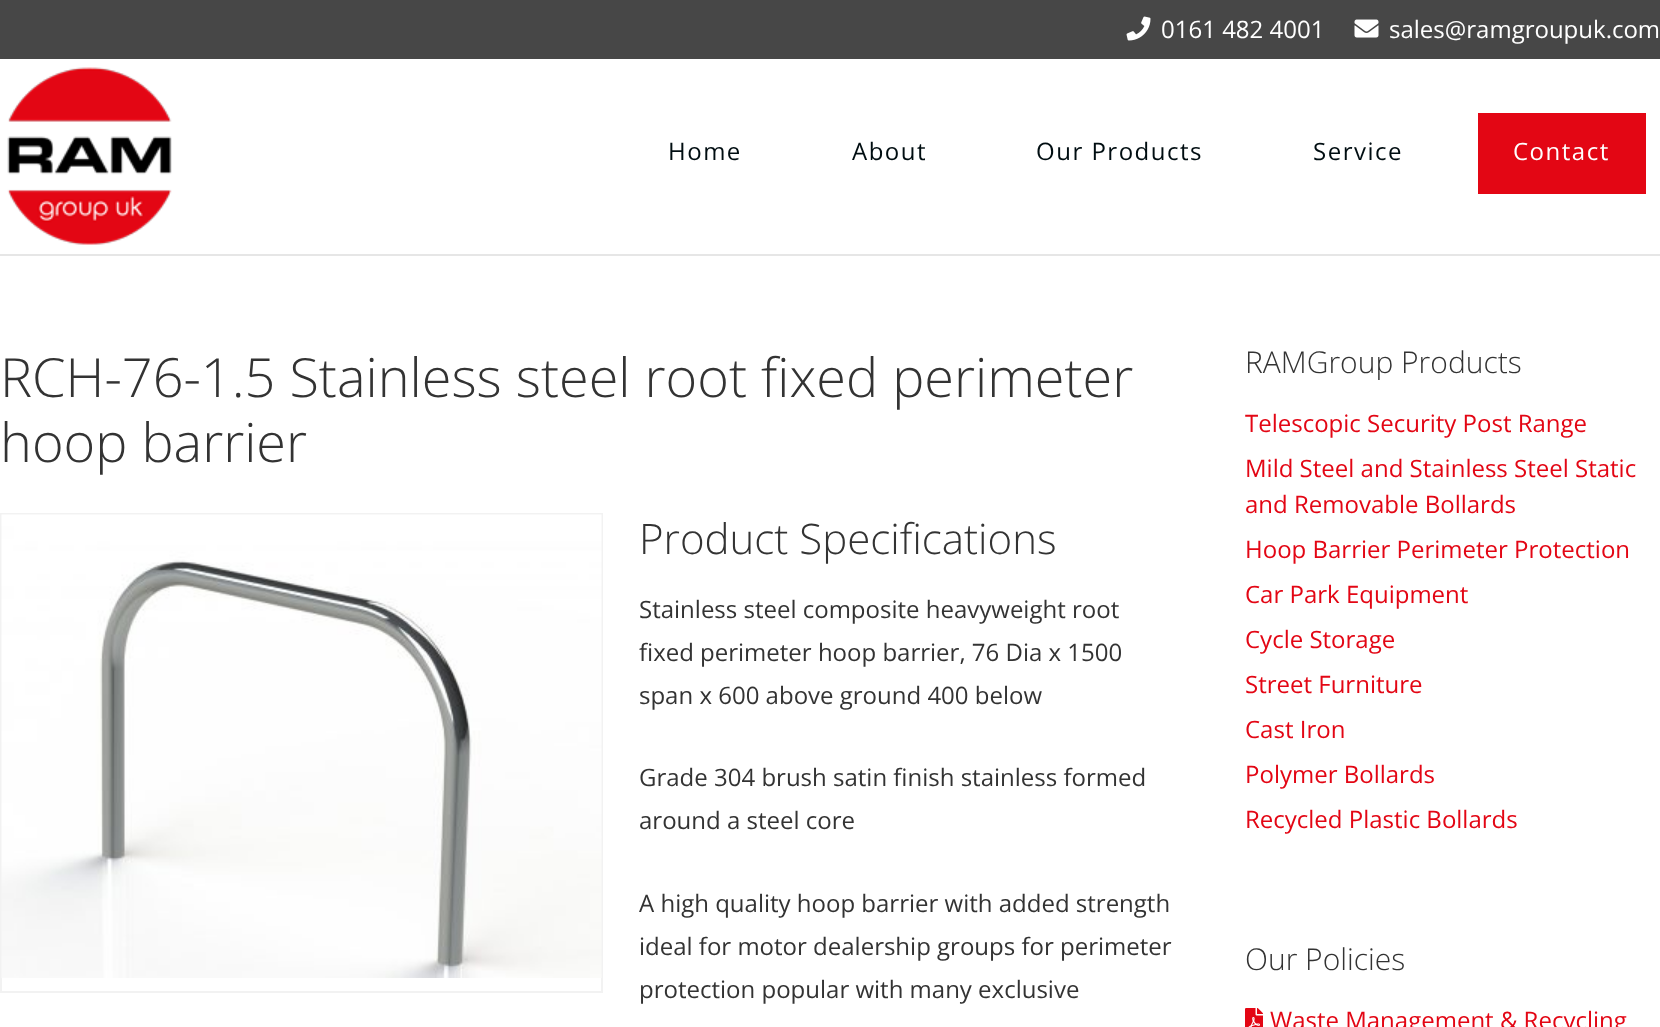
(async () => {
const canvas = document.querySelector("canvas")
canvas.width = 1660
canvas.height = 1027
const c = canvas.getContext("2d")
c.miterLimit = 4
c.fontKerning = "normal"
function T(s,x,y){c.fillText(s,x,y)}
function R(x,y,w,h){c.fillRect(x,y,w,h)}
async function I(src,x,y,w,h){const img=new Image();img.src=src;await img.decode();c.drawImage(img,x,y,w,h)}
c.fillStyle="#fff"
R(0,0,1660,1027)
c.fillStyle="#474747"
R(0,0,1660,59)
await I("1.png",1126,16,25,25)
c.font="24px Open Sans"
c.fillStyle="#fff"
T("0161 482 4001",1161,38)
await I("2.png",1354,19,25,19)
T("sales@ramgroupuk.com",1389,38)
c.fillStyle="#e6e6e6"
R(0,254,1660,2)
await I("3.png",7,67,165,178)
c.letterSpacing="1.5px"
c.fillStyle="#000d11"
T("Home",668,160)
T("About",852,160)
T("Our Products",1036,160)
T("Service",1313,160)
c.fillStyle="#e30614"
R(1478,113,168,81)
c.fillStyle="#fff"
T("Contact",1513,160)
c.letterSpacing="0px"
c.font="300 54px Open Sans"
c.fillStyle="#333"
T("RCH-76-1.5 Stainless steel root fixed perimeter",0,397)
T("hoop barrier",0,462)
c.strokeStyle="#f2f2f2"
c.lineWidth=2
c.strokeRect(1,514,601,478)
await I("4.png",1,514,601,464)
c.font="300 42px Open Sans"
T("Product Specifications",639,554)
c.font="24px Open Sans"
T("Stainless steel composite heavyweight root",639,618)
T("fixed perimeter hoop barrier, 76 Dia x 1500",639,661)
T("span x 600 above ground 400 below",639,704)
T("Grade 304 brush satin finish stainless formed",639,786)
T("around a steel core",639,829)
T("A high quality hoop barrier with added strength",639,912)
T("ideal for motor dealership groups for perimeter",639,955)
T("protection popular with many exclusive",639,998)
c.font="300 30px Open Sans"
T("RAMGroup Products",1245,373)
c.font="24px Open Sans"
c.fillStyle="#e30614"
T("Telescopic Security Post Range",1245,432)
T("Mild Steel and Stainless Steel Static",1245,477)
T("and Removable Bollards",1245,513)
T("Hoop Barrier Perimeter Protection",1245,558)
T("Car Park Equipment",1245,603)
T("Cycle Storage",1245,648)
T("Street Furniture",1245,693)
T("Cast Iron",1245,738)
T("Polymer Bollards",1245,783)
T("Recycled Plastic Bollards",1245,828)
c.font="300 30px Open Sans"
c.fillStyle="#333"
T("Our Policies",1245,970)
await I("5.png",1245,1008,18,19)
c.font="24px Open Sans"
c.fillStyle="#e30614"
T("Waste Management & Recycling",1270,1029)
})()
